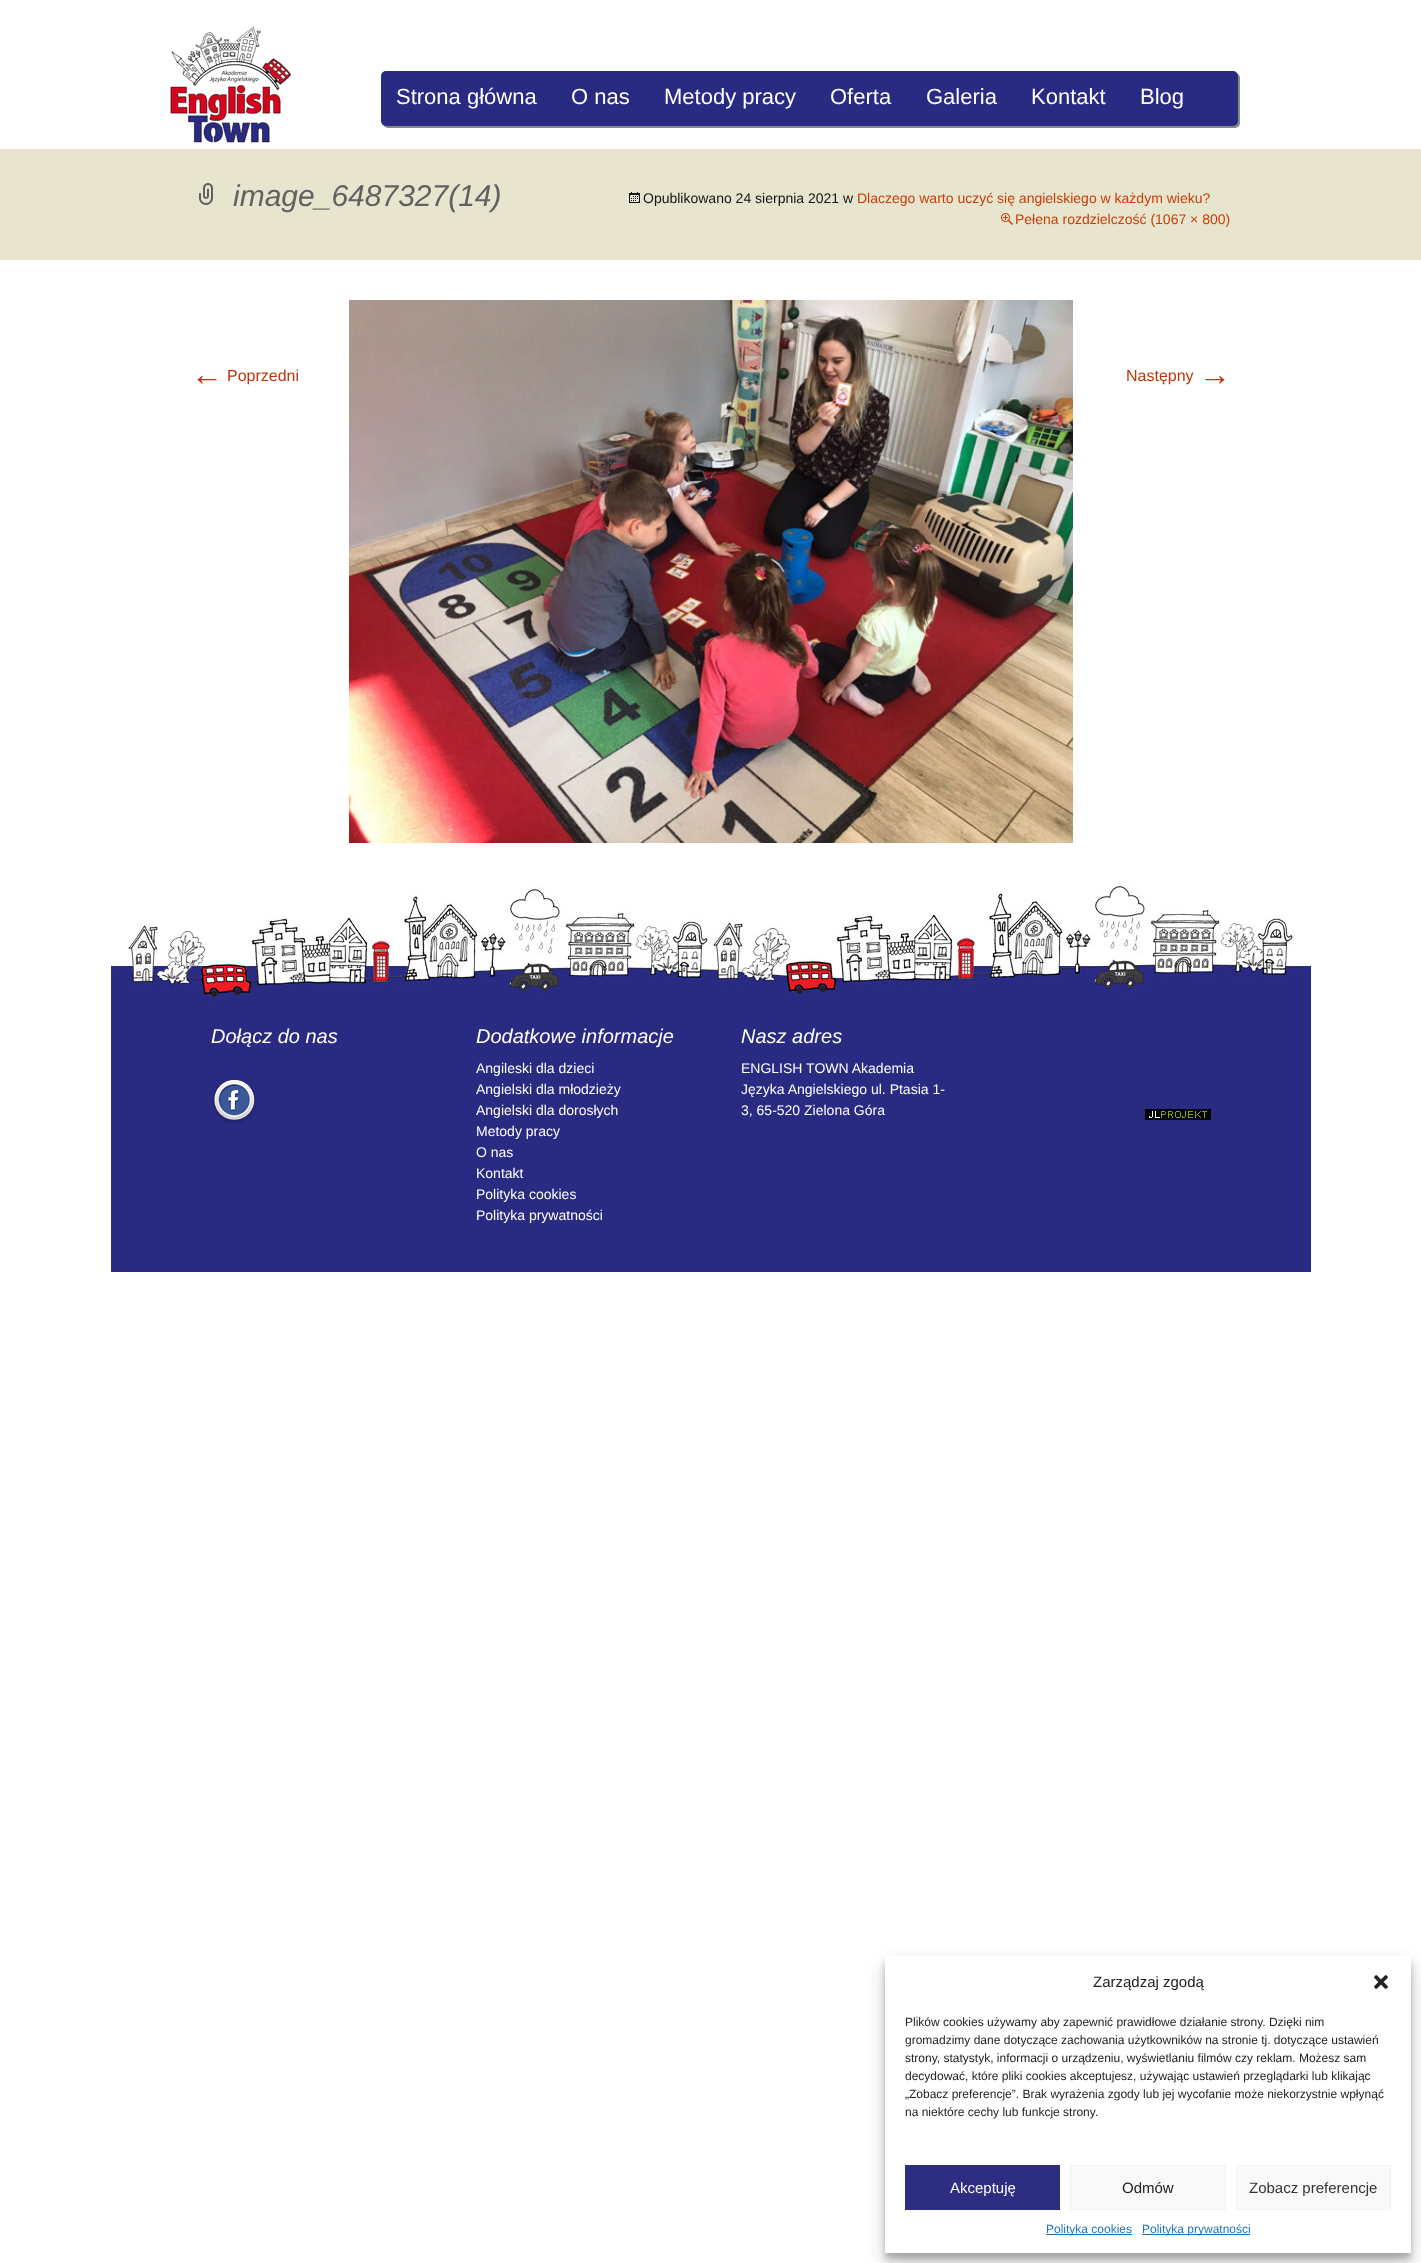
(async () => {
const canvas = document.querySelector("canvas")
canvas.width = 1421
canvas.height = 2263
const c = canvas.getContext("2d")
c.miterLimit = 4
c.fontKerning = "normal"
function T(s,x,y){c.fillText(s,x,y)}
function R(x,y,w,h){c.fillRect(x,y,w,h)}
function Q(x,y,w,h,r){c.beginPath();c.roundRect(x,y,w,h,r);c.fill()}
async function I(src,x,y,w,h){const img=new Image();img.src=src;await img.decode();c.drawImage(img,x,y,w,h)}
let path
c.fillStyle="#fff"
R(0,0,1421,2263)
await I("1.png",170,26,121,117)
c.fillStyle="#888"
c.filter="blur(0.5px)"
c.beginPath()
c.roundRect(383,73,857,55,5)
c.fill()
c.filter="none"
c.fillStyle="#292b82"
Q(381,71,857,55,5)
c.font="22px Liberation Sans"
c.fillStyle="#fff"
T("Strona główna",396,104)
T("O nas",571,104)
T("Metody pracy",664,104)
T("Oferta",830,104)
T("Galeria",926,104)
T("Kontakt",1031,104)
T("Blog",1140,104)
c.fillStyle="#e8e5ce"
R(0,149,1421,111)
await I("2.png",199,183,14,22)
c.font="italic 30px Liberation Sans"
c.fillStyle="#616161"
T("image_6487327(14)",233,206)
await I("3.png",629,192,11,11)
c.font="14px Liberation Sans"
c.fillStyle="#141412"
T("Opublikowano 24 sierpnia 2021 w",643,203)
c.fillStyle="#ca3c08"
T("Dlaczego warto uczyć się angielskiego w każdym wieku?",857,203)
await I("4.png",1001,213,12,12)
T("Pełena rozdzielczość (1067 × 800)",1015,224)
await I("5.png",349,300,724,543)
c.font="32px Liberation Sans"
c.fillStyle="#bc360a"
T("←",191,385)
c.font="16px Liberation Sans"
T("Poprzedni",227,381)
T("Następny",1126,381)
c.font="32px Liberation Sans"
T("→",1199,385)
c.fillStyle="#292b82"
R(111,1003,1200,269)
await I("6.png",111,883,1200,120)
c.font="italic 20px Liberation Sans"
c.fillStyle="#fff"
T("Dołącz do nas",211,1043)
await I("7.png",212,1079,44,45)
T("Dodatkowe informacje",476,1043)
c.font="14px Liberation Sans"
T("Angileski dla dzieci",476,1073)
T("Angielski dla młodzieży",476,1094)
T("Angielski dla dorosłych",476,1115)
T("Metody pracy",476,1136)
T("O nas",476,1157)
T("Kontakt",476,1178)
T("Polityka cookies",476,1199)
T("Polityka prywatności",476,1220)
c.font="italic 20px Liberation Sans"
T("Nasz adres",741,1043)
c.font="14px Liberation Sans"
T("ENGLISH TOWN Akademia",741,1073)
T("Języka Angielskiego ul. Ptasia 1-",741,1094)
T("3, 65-520 Zielona Góra",741,1115)
await I("8.png",1145,1109,66,11)
c.save()
path = new Path2D("M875 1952h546v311h-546zm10 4h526v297h-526z")
c.clip(path,"evenodd")
c.fillStyle="#0000003b"
c.filter="blur(3px)"
c.beginPath()
c.rect(885,1962,526,297)
c.fill()
c.filter="none"
c.restore()
c.save()
path = new Path2D("M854 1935h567v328h-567zm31 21h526v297h-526z")
c.clip(path,"evenodd")
c.fillStyle="#00000030"
c.filter="blur(10px)"
c.beginPath()
c.rect(885,1966,526,297)
c.fill()
c.filter="none"
c.restore()
c.font="15px Liberation Sans"
c.fillStyle="#222"
T("Zarządzaj zgodą",1093,1987)
await I("9.png",1374,1975,14,14)
c.font="12px Liberation Sans"
T("Plików cookies używamy aby zapewnić prawidłowe działanie strony. Dzięki nim",905,2026)
T("gromadzimy dane dotyczące zachowania użytkowników na stronie tj. dotyczące ustawień",905,2044)
T("strony, statystyk, informacji o urządzeniu, wyświetlaniu filmów czy reklam. Możesz sam",905,2062)
T("decydować, które pliki cookies akceptujesz, używając ustawień przeglądarki lub klikając",905,2080)
T("„Zobacz preferencje”. Brak wyrażenia zgody lub jej wycofanie może niekorzystnie wpłynąć",905,2098)
T("na niektóre cechy lub funkcje strony.",905,2116)
c.fillStyle="#2d2d82"
R(905,2165,155,45)
c.font="15px Liberation Sans"
c.fillStyle="#fff"
T("Akceptuję",950,2193)
c.fillStyle="#f9f9f9"
c.beginPath()
c.rect(1070.5,2165.5,155,44)
c.fill()
c.strokeStyle="#f2f2f2"
c.stroke()
c.fillStyle="#222"
T("Odmów",1122,2193)
c.fillStyle="#f9f9f9"
c.beginPath()
c.rect(1236.5,2165.5,154,44)
c.fill()
c.stroke()
c.fillStyle="#333"
T("Zobacz preferencje",1249,2193)
c.fillStyle="#1e73be"
R(1046,2234,86,1)
c.font="12px Liberation Sans"
T("Polityka cookies",1046,2233)
R(1142,2234,108,1)
T("Polityka prywatności",1142,2233)
})()
